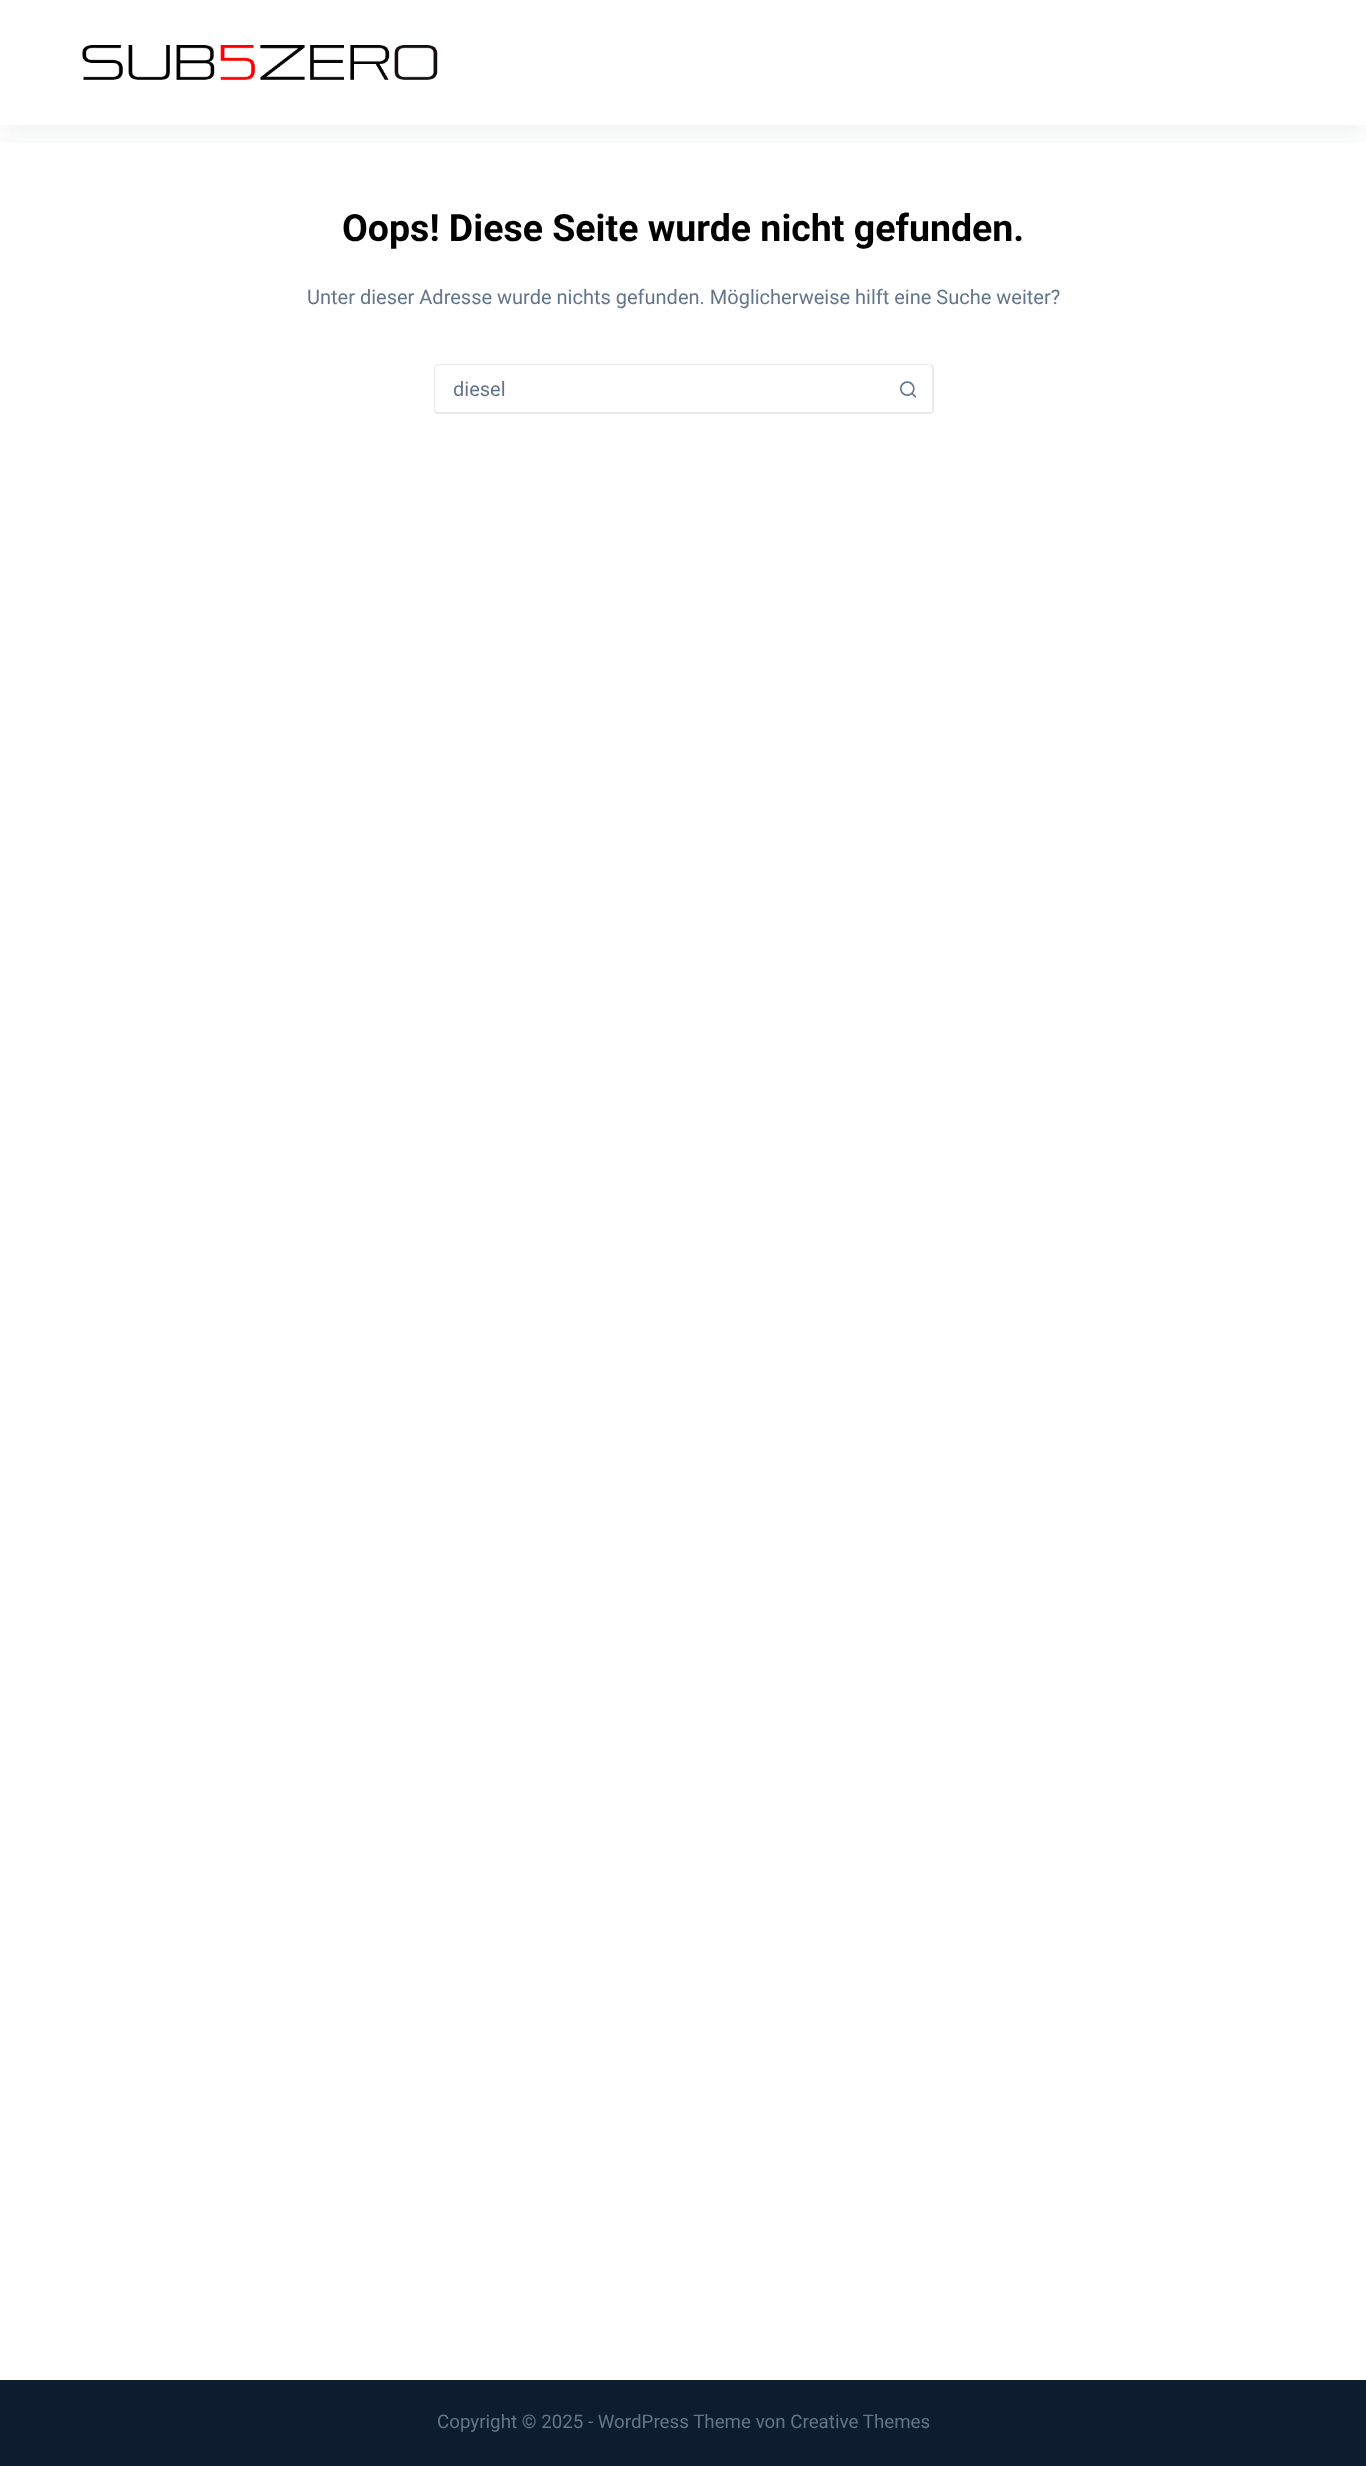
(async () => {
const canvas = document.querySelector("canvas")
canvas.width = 1366
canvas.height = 2466
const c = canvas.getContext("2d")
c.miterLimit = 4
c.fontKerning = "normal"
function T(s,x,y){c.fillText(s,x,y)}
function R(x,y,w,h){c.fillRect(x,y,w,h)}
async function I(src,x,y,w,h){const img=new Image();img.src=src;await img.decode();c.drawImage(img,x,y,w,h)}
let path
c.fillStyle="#fff"
R(0,0,1366,2466)
c.save()
c.beginPath()
c.rect(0,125,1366,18)
c.clip()
c.fillStyle="#2b3d500f"
c.filter="blur(12.5px)"
c.beginPath()
c.rect(0,13,1366,125)
c.fill()
c.filter="none"
c.restore()
await I("1.png",82,45,356,35)
c.font="bold 37.5px Roboto"
c.fillStyle="#000"
T("Oops! Diese Seite wurde nicht gefunden.",342,241)
c.font="20px Roboto"
c.fillStyle="#64758b"
T("Unter dieser Adresse wurde nichts gefunden. Möglicherweise hilft eine Suche weiter?",307,304)
c.fillStyle="#e7ebee"
path = new Path2D("M438 364h446v50h-446c-3 0-4-2-4-4v-42c0-3 1-4 4-4zm0 1h446v47h-446c-2 0-3-1-3-2v-42c0-2 1-3 3-3z")
c.fill(path,"evenodd")
c.fillStyle="#64758b"
T("diesel",453,396)
c.fillStyle="#e7ebee"
path = new Path2D("M884 364h46c2 0 4 1 4 4v42c0 2-2 4-4 4h-46zm0 1h46c1 0 2 1 2 3v42c0 1-1 2-2 2h-46z")
c.fill(path,"evenodd")
await I("2.png",900,381,16,17)
c.fillStyle="#0d1c2f"
R(0,2380,1366,86)
c.font="18.75px Roboto"
c.fillStyle="#64758b"
T("Copyright © 2025 - WordPress Theme von Creative Themes",437,2428)
})()
